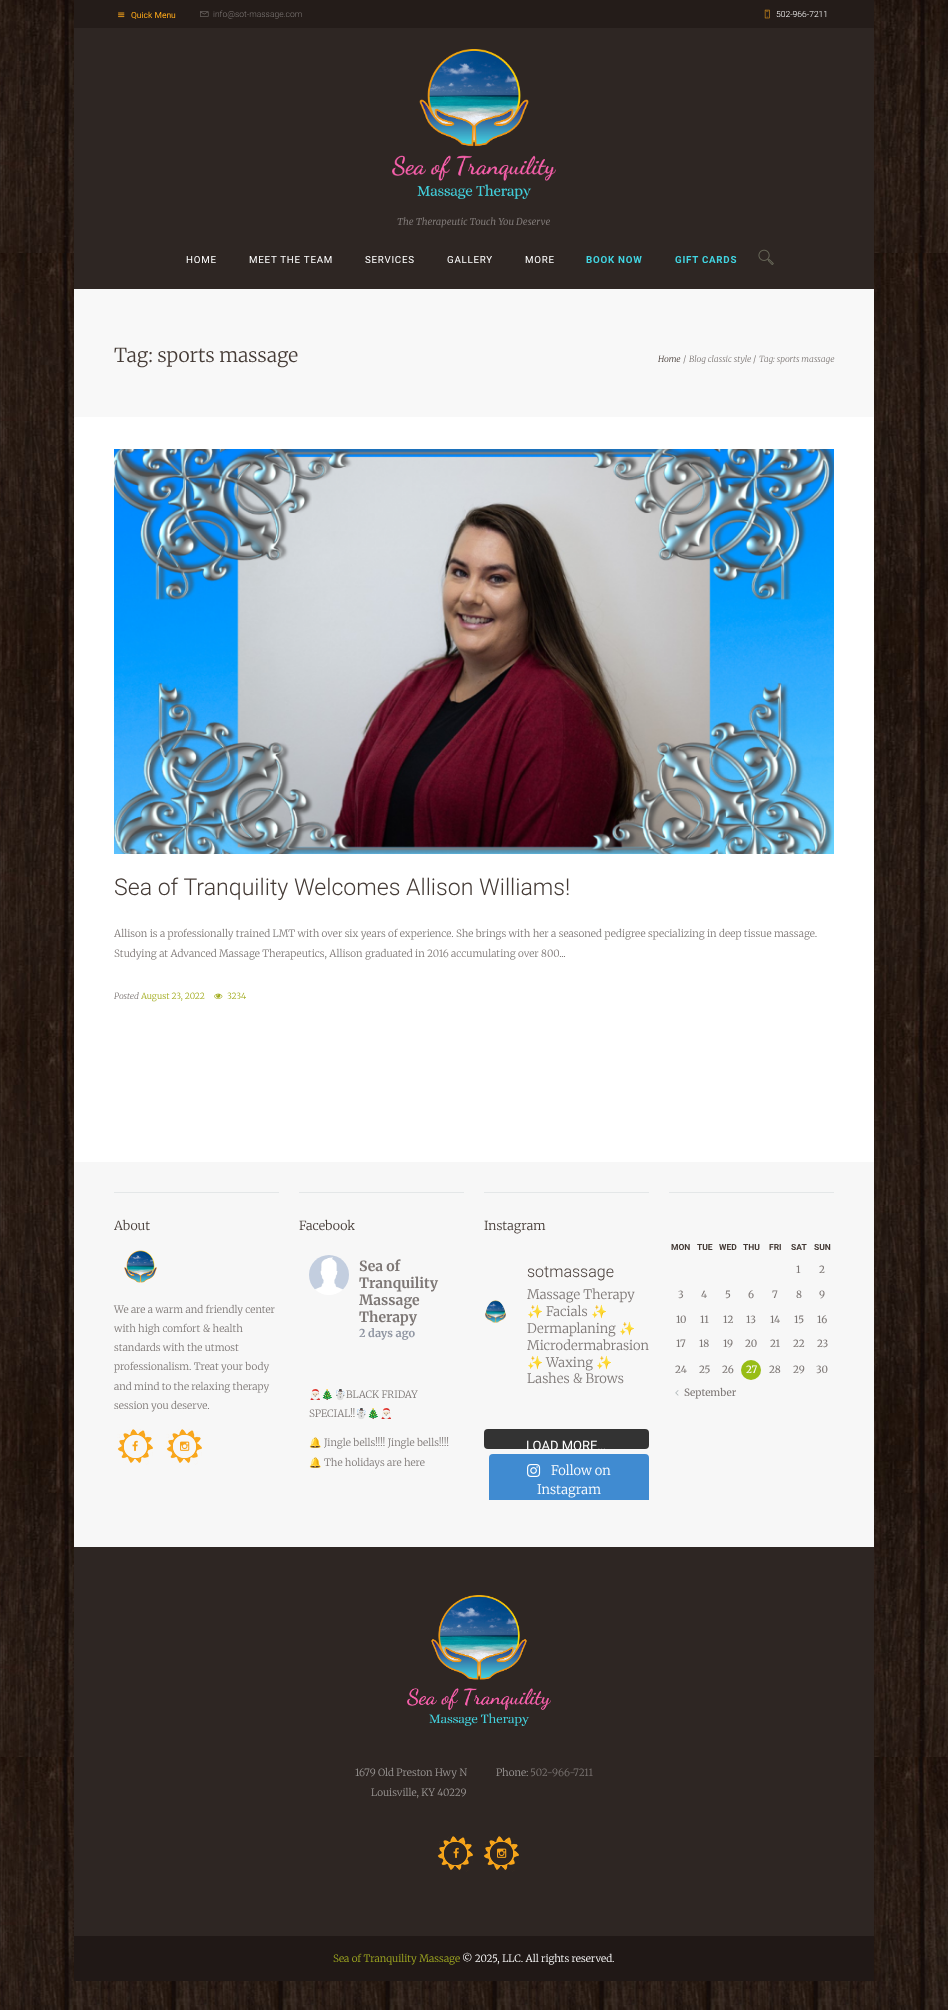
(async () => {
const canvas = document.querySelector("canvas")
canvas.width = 948
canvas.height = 2010
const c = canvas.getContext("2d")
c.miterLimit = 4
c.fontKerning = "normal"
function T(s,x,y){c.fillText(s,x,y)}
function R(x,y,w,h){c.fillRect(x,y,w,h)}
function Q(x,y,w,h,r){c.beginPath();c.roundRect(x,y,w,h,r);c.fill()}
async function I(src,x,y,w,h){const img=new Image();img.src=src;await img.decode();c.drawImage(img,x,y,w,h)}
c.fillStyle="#fff"
R(0,0,948,2010)
await I("1.png",0,0,948,2010)
R(74,417,800,745)
c.fillStyle="#2e2623"
R(74,28,800,261)
c.fillStyle="#241c19"
R(74,0,800,28)
await I("2.png",118,12,7,6)
c.font="8.5px Roboto"
c.fillStyle="#f9a61a"
T("Quick Menu",131,18)
await I("3.png",200,11,9,6)
c.font="300 8.5px Roboto"
c.fillStyle="#7e7876"
T("info@sot-massage.com",213,17)
await I("4.png",764,9,6,10)
c.fillStyle="#fff"
T("502-966-7211",776,17)
await I("5.png",392,49,164,150)
c.font="italic 9.5px Merriweather"
c.fillStyle="#7e7876"
T("The Therapeutic Touch You Deserve",397,225)
c.letterSpacing="0.75px"
c.font="9.75px Roboto"
c.fillStyle="#fff"
T("HOME",186,263)
T("MEET THE TEAM",249,263)
T("SERVICES",365,263)
T("GALLERY",447,263)
T("MORE",525,263)
c.font="bold 9.75px Roboto"
c.fillStyle="#42d5e2"
T("BOOK NOW",586,263)
T("GIFT CARDS",675,263)
await I("6.png",758,249,16,16)
c.fillStyle="#f8f8f8"
R(74,289,800,128)
c.letterSpacing="0px"
c.font="300 19.25px Merriweather"
c.fillStyle="#453b36"
T("Tag: sports massage",114,362)
c.font="italic 300 8.5px Merriweather"
T("Home",658,362)
c.font="300 8.5px Merriweather"
c.fillStyle="#7e7876"
T("/",683,362)
c.font="italic 300 8.5px Merriweather"
T("Blog classic style",689,362)
c.font="300 8.5px Merriweather"
T("/",753,362)
c.font="italic 300 8.5px Merriweather"
T("Tag: sports massage",759,362)
await I("7.png",114,449,720,405)
c.font="300 23.1px Roboto"
c.fillStyle="#453b36"
T("Sea of Tranquility Welcomes Allison Williams!",114,895)
c.font="300 10px Merriweather"
c.fillStyle="#7e7876"
T("Allison is a professionally trained LMT with over six years of experience. She brings with her a seasoned pedigree specializing in deep tissue massage.",114,937)
T("Studying at Advanced Massage Therapeutics, Allison graduated in 2016 accumulating over 800...",114,957)
c.font="italic 300 8.5px Merriweather"
T("Posted",114,999)
c.font="300 8.5px Merriweather"
c.fillStyle="#a3ad21"
T("August 23, 2022",141,999)
await I("8.png",214,993,9,7)
T("3234",227,999)
c.fillStyle="#f7f7f7"
R(74,1162,800,385)
c.fillStyle="#e4e7e8"
R(114,1192,165,1)
c.font="300 12.5px Merriweather"
c.fillStyle="#453b36"
T("About",114,1230)
await I("9.png",124,1250,33,33)
c.font="300 10px Merriweather"
c.fillStyle="#7e7876"
T("We are a warm and friendly center",114,1313)
T("with high comfort & health",114,1332)
T("standards with the utmost",114,1351)
T("professionalism. Treat your body",114,1370)
T("and mind to the relaxing therapy",114,1390)
T("session you deserve.",114,1409)
await I("10.png",117,1429,36,36)
await I("11.png",132,1440,6,11)
await I("10.png",166,1429,36,36)
await I("12.png",180,1441,10,10)
c.fillStyle="#e4e7e8"
R(299,1192,165,1)
c.font="300 12.5px Merriweather"
c.fillStyle="#453b36"
T("Facebook",299,1230)
await I("13.png",309,1255,40,40)
c.font="bold 14px Merriweather"
c.fillStyle="#7e7876"
T("Sea of",359,1271)
T("Tranquility",359,1288)
T("Massage",359,1305)
T("Therapy",359,1322)
c.font="bold 11px Merriweather"
c.fillStyle="#9197a3"
T("2 days ago",359,1337)
c.font="10px Noto Color Emoji"
c.fillStyle="#7e7876"
T("🎅🏻🎄☃️",309,1398)
c.font="300 10px Merriweather"
T("BLACK FRIDAY",346,1398)
T("SPECIAL!!",309,1417)
c.font="10px Noto Color Emoji"
T("☃️🎄🎅🏻",355,1417)
T("🔔",309,1446)
c.font="300 10px Merriweather"
T("Jingle bells!!!! Jingle bells!!!!",324,1446)
c.font="10px Noto Color Emoji"
T("🔔",309,1466)
c.font="300 10px Merriweather"
T("The holidays are here",324,1466)
c.fillStyle="#e4e7e8"
R(484,1192,165,1)
c.font="300 12.5px Merriweather"
c.fillStyle="#453b36"
T("Instagram",484,1230)
await I("14.png",485,1300,21,23)
c.font="300 16px Roboto"
T("sotmassage",527,1277)
c.font="300 13px Merriweather"
c.fillStyle="#7e7876"
T("Massage Therapy",527,1299)
c.font="13px Noto Color Emoji"
T("✨",527,1316)
c.font="300 13px Merriweather"
T("Facials",546,1316)
c.font="13px Noto Color Emoji"
T("✨",591,1316)
c.font="300 13px Merriweather"
T("Dermaplaning",527,1333)
c.font="13px Noto Color Emoji"
T("✨",619,1333)
c.font="300 13px Merriweather"
T("Microdermabrasion",527,1350)
c.font="13px Noto Color Emoji"
T("✨",527,1367)
c.font="300 13px Merriweather"
T("Waxing",546,1367)
c.font="13px Noto Color Emoji"
T("✨",596,1367)
c.font="300 13px Merriweather"
T("Lashes & Brows",527,1383)
c.fillStyle="#333"
Q(484,1429,165,20,4)
c.font="13px Roboto"
c.fillStyle="#fff"
T("LOAD MORE…",526,1450)
c.fillStyle="#408bd1"
c.beginPath()
c.roundRect(489,1454,160,46,[4,4,0,0])
c.fill()
await I("15.png",527,1464,14,13)
c.font="300 13px Merriweather"
c.fillStyle="#fff"
T("Follow on",551,1475)
T("Instagram",537,1494)
c.fillStyle="#e4e7e8"
R(669,1192,165,1)
c.font="bold 8.5px Roboto"
c.fillStyle="#453b36"
T("MON",671,1250)
T("TUE",697,1250)
T("WED",719,1250)
T("THU",743,1250)
T("FRI",769,1250)
T("SAT",791,1250)
T("SUN",814,1250)
c.font="10px Merriweather"
c.fillStyle="#7e7876"
T("1",796,1273)
T("2",819,1273)
T("3",678,1298)
T("4",701,1298)
T("5",725,1298)
T("6",748,1298)
T("7",772,1298)
T("8",796,1298)
T("9",819,1298)
T("10",676,1323)
T("11",700,1323)
T("12",723,1323)
T("13",746,1323)
T("14",770,1323)
T("15",794,1323)
T("16",817,1323)
T("17",676,1347)
T("18",699,1347)
T("19",723,1347)
T("20",745,1347)
T("21",770,1347)
T("22",793,1347)
T("23",817,1347)
T("24",675,1373)
T("25",699,1373)
T("26",722,1373)
c.fillStyle="#98bd15"
c.beginPath()
c.arc(751,1370,10,0,7)
c.fill()
c.fillStyle="#fff"
T("27",746,1373)
c.fillStyle="#7e7876"
T("28",769,1373)
T("29",793,1373)
T("30",816,1373)
await I("16.png",675,1390,4,6)
T("September",684,1396)
c.fillStyle="#2e2623"
R(74,1547,800,389)
await I("17.png",407,1595,144,131)
c.font="300 10px Merriweather"
c.fillStyle="#9d9997"
T("1679 Old Preston Hwy N",355,1776)
T("Louisville, KY 40229",371,1796)
T("Phone:",496,1776)
c.fillStyle="#7e7876"
T("502-966-7211",530,1776)
await I("18.png",437,1836,36,36)
await I("19.png",453,1847,6,11)
await I("18.png",483,1836,36,36)
await I("20.png",497,1848,10,10)
c.fillStyle="#201816"
R(74,1936,800,45)
c.fillStyle="#a3ad21"
T("Sea of Tranquility Massage",333,1962)
c.fillStyle="#fff"
T("© 2025, LLC. All rights reserved.",462,1962)
})()
